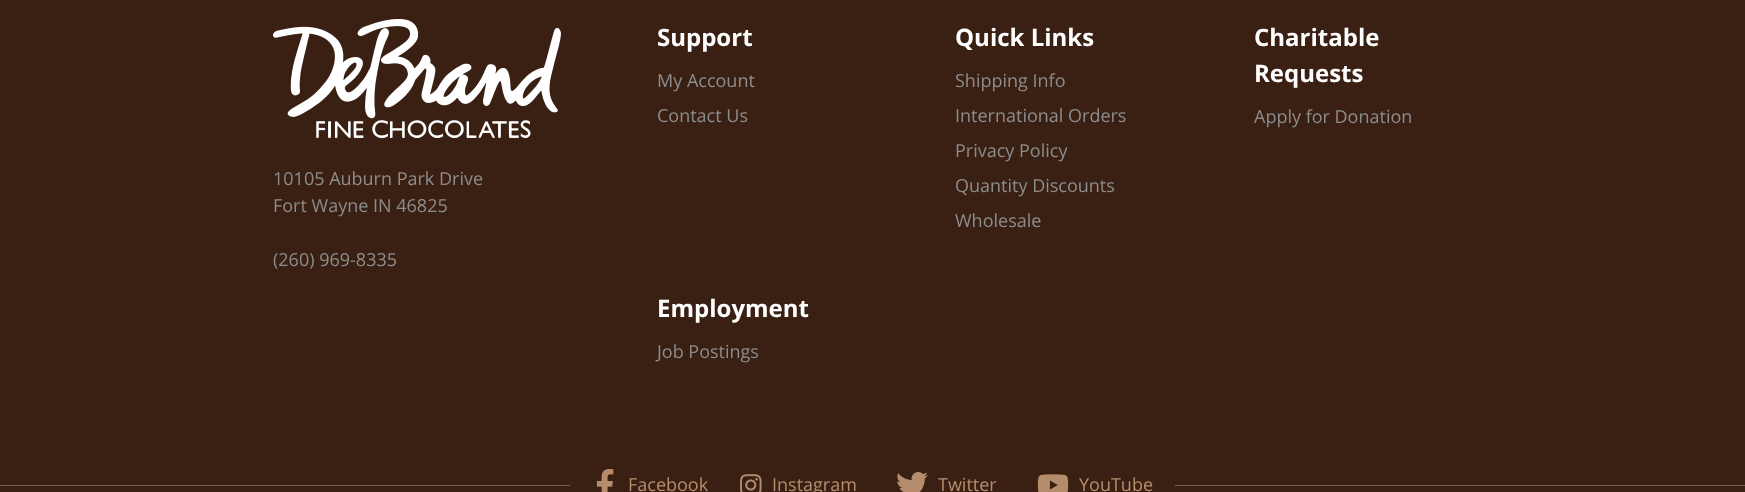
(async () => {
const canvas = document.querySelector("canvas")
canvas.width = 1745
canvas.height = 492
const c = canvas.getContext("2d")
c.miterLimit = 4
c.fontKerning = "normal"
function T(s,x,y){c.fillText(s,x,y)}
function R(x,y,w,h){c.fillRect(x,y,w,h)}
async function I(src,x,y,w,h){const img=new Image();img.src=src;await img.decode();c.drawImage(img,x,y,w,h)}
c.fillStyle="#3a2013"
R(0,0,1745,492)
await I("1.png",273,19,288,119)
c.font="18px Open Sans"
c.fillStyle="#8d8d8d"
T("10105 Auburn Park Drive",273,185)
T("Fort Wayne IN 46825",273,212)
T("(260) 969-8335",273,266)
c.font="bold 24px Open Sans"
c.fillStyle="#fff"
T("Support",657,46)
c.font="18px Open Sans"
c.fillStyle="#8d8d8d"
T("My Account",657,87)
T("Contact Us",657,122)
c.font="bold 24px Open Sans"
c.fillStyle="#fff"
T("Quick Links",955,46)
c.font="18px Open Sans"
c.fillStyle="#8d8d8d"
T("Shipping Info",955,87)
T("International Orders",955,122)
T("Privacy Policy",955,157)
T("Quantity Discounts",955,192)
T("Wholesale",955,227)
c.font="bold 24px Open Sans"
c.fillStyle="#fff"
T("Charitable",1254,46)
T("Requests",1254,82)
c.font="18px Open Sans"
c.fillStyle="#8d8d8d"
T("Apply for Donation",1254,123)
c.font="bold 24px Open Sans"
c.fillStyle="#fff"
T("Employment",657,317)
c.font="18px Open Sans"
c.fillStyle="#8d8d8d"
T("Job Postings",657,358)
c.fillStyle="#746158"
R(0,485,570,1)
await I("2.png",596,469,18,23)
c.fillStyle="#b68d6c"
T("Facebook",628,491)
await I("3.png",740,474,22,18)
T("Instagram",772,491)
await I("4.png",897,472,31,20)
T("Twitter",938,491)
await I("5.png",1037,474,32,18)
T("YouTube",1079,491)
c.fillStyle="#746158"
R(1175,485,570,1)
})()
